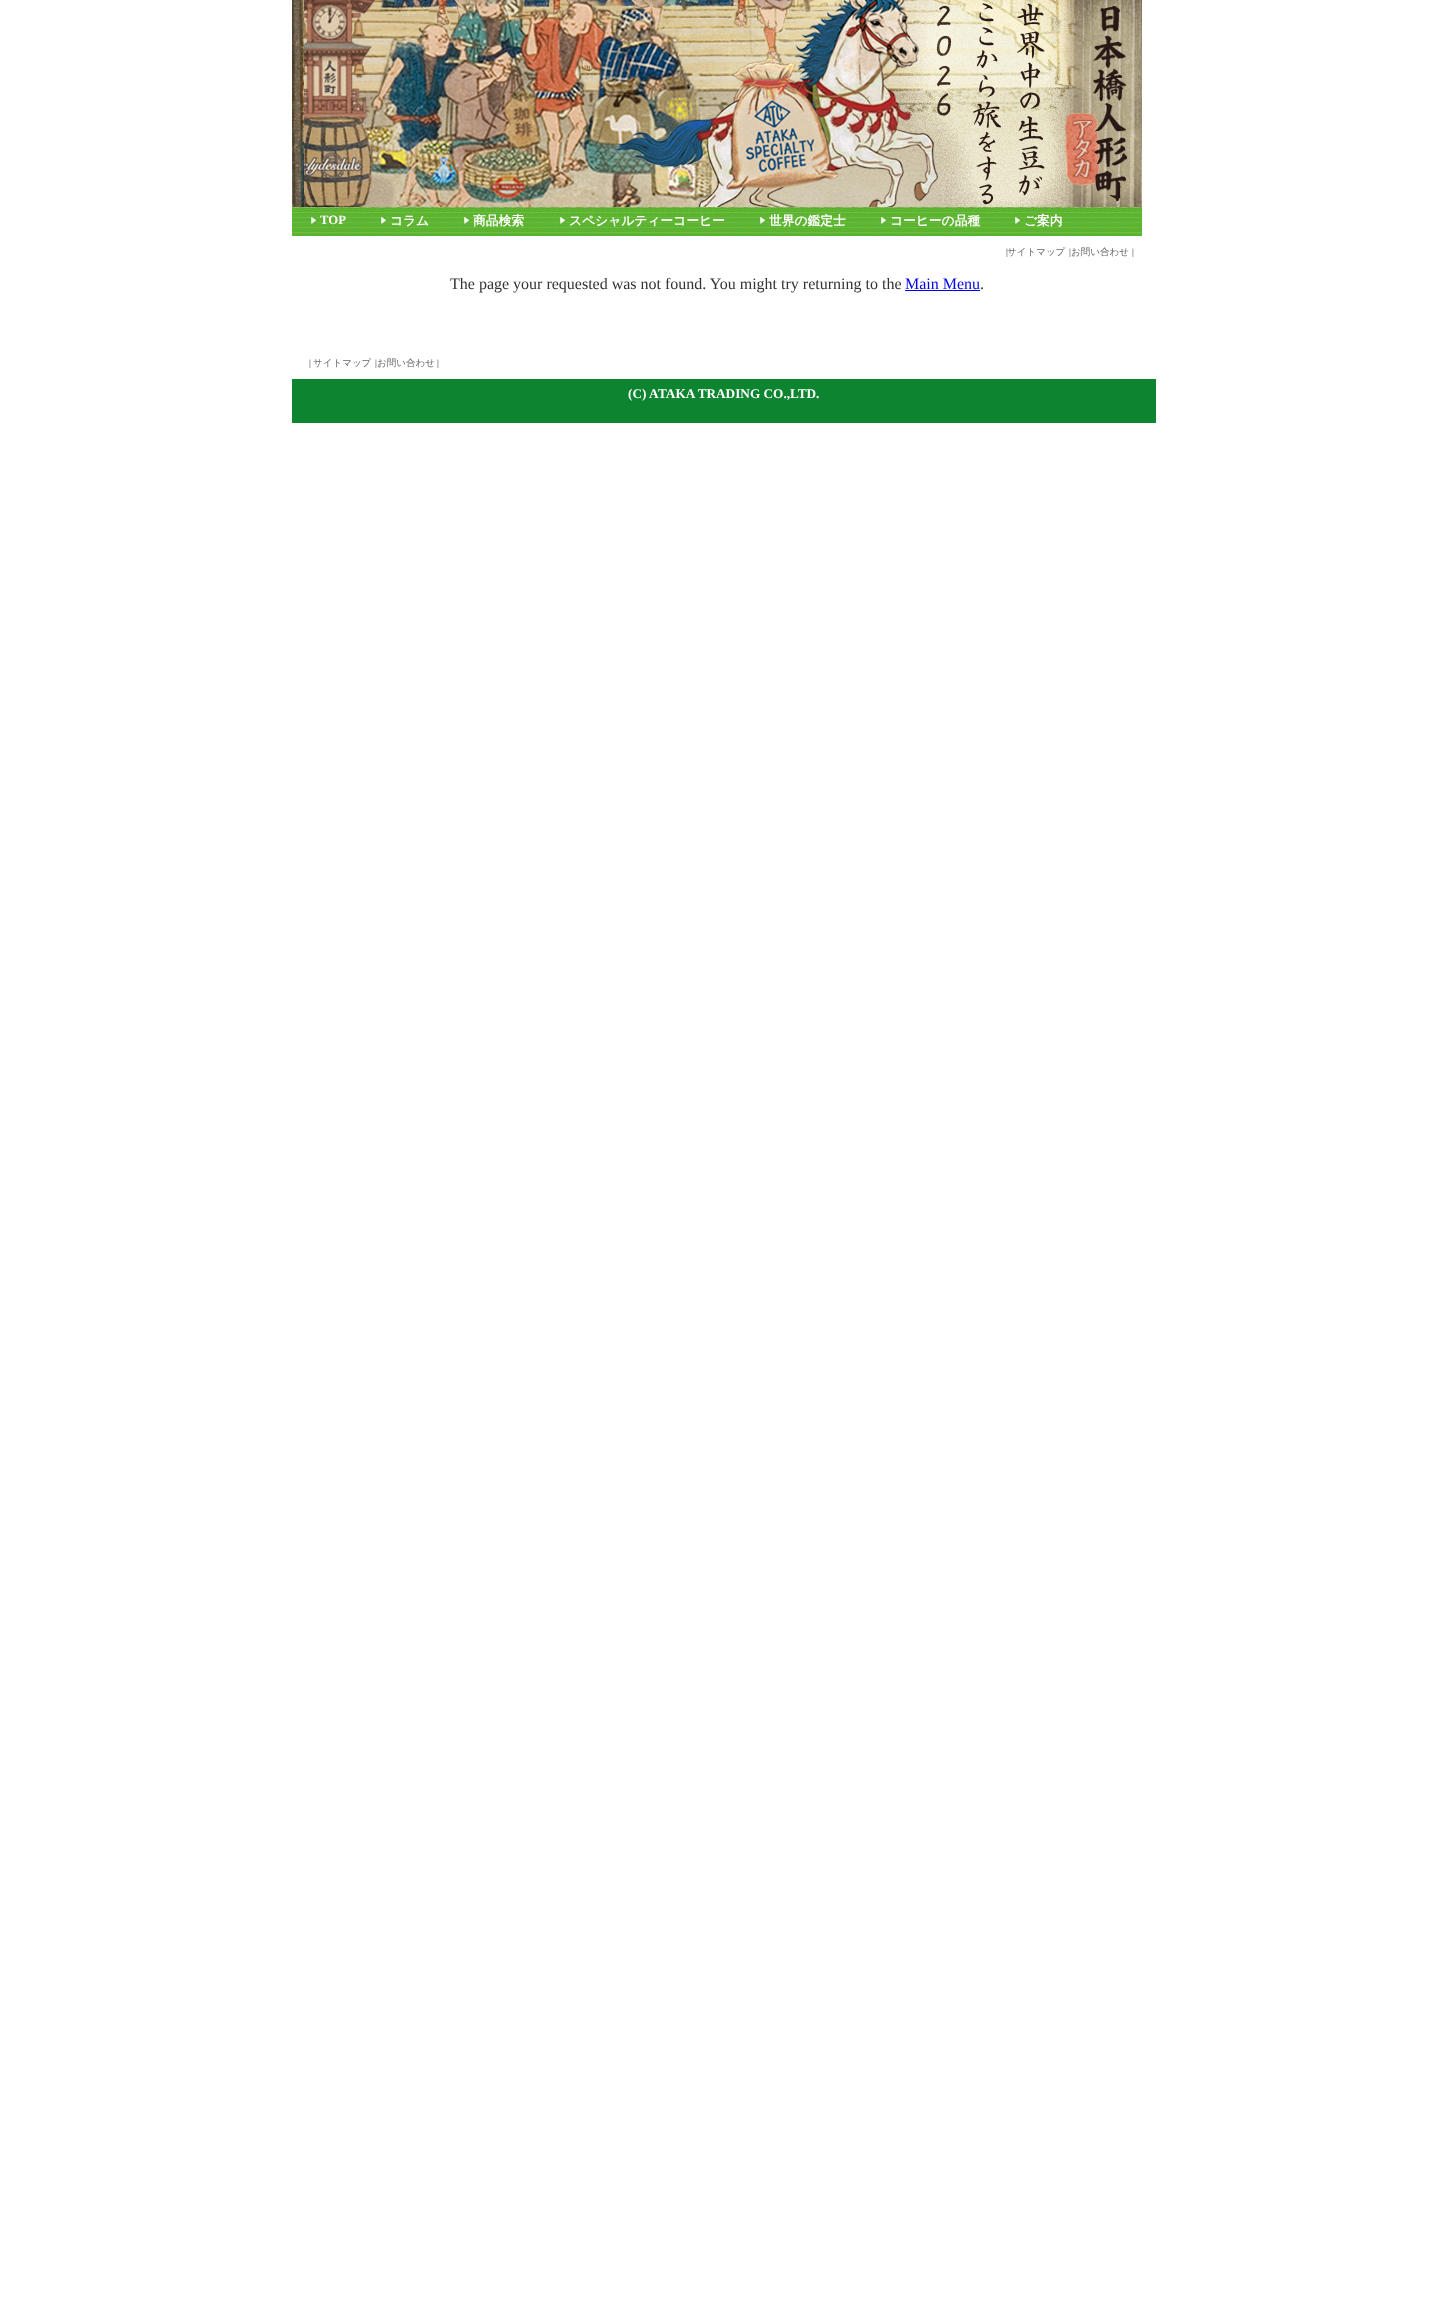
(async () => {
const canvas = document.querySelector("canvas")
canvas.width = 1434
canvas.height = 2318
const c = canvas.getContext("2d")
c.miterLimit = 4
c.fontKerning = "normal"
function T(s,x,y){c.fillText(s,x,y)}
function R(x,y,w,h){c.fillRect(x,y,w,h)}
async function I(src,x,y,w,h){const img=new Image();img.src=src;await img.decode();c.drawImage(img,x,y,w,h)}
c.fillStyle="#fff"
R(0,0,1434,2318)
await I("1.png",292,0,850,207)
c.fillStyle="#58b330"
R(292,235,850,1)
await I("2.png",292,207,850,28)
await I("3.png",308,207,38,26)
await I("4.png",311,216,5,8)
c.font="bold 12.75px Liberation Serif"
c.fillStyle="#fff"
T("TOP",320,224)
await I("5.png",378,207,51,26)
await I("4.png",381,216,5,8)
c.font="bold 12.75px WenQuanYi Zen Hei"
T("コラム",390,225)
await I("6.png",461,207,64,26)
await I("4.png",464,216,5,8)
T("商品検索",473,225)
await I("7.png",557,207,168,26)
await I("4.png",560,216,5,8)
T("スペシャルティーコーヒー",569,225)
await I("8.png",757,207,89,26)
await I("4.png",760,216,5,8)
T("世界の鑑定士",769,225)
await I("9.png",878,207,102,26)
await I("4.png",881,216,5,8)
T("コーヒーの品種",890,225)
await I("4.png",1015,216,5,8)
T("ご案内",1024,225)
c.font="9.5px Liberation Serif"
c.fillStyle="#333"
T("|",1006,255)
c.font="500 9.5px WenQuanYi Zen Hei"
c.fillStyle="#666"
T("サイトマップ",1007,255)
c.font="9.5px Liberation Serif"
c.fillStyle="#333"
T("|",1069,255)
c.font="500 9.5px WenQuanYi Zen Hei"
c.fillStyle="#666"
T("お問い合わせ",1071,255)
c.font="9.5px Liberation Serif"
c.fillStyle="#333"
T("|",1132,255)
c.font="16px Liberation Serif"
T("The page your requested was not found. You might try returning to the",450,289)
c.fillStyle="#00e"
T("Main Menu",905,289)
R(905,290,75,1)
c.fillStyle="#333"
T(".",980,289)
c.font="9.5px Liberation Serif"
T("|",309,366)
c.font="500 9.5px WenQuanYi Zen Hei"
c.fillStyle="#666"
T("サイトマップ",313,366)
c.font="9.5px Liberation Serif"
c.fillStyle="#333"
T("|",375,366)
c.font="500 9.5px WenQuanYi Zen Hei"
c.fillStyle="#666"
T("お問い合わせ",377,366)
c.font="9.5px Liberation Serif"
c.fillStyle="#333"
T("|",437,366)
c.fillStyle="#0d8430"
R(292,379,864,44)
c.font="bold 13.25px Liberation Serif"
c.fillStyle="#fff"
T("(C)",628,398)
T("A",649,398)
T("TAKA TRADING CO.,LTD.",658,398)
})()
